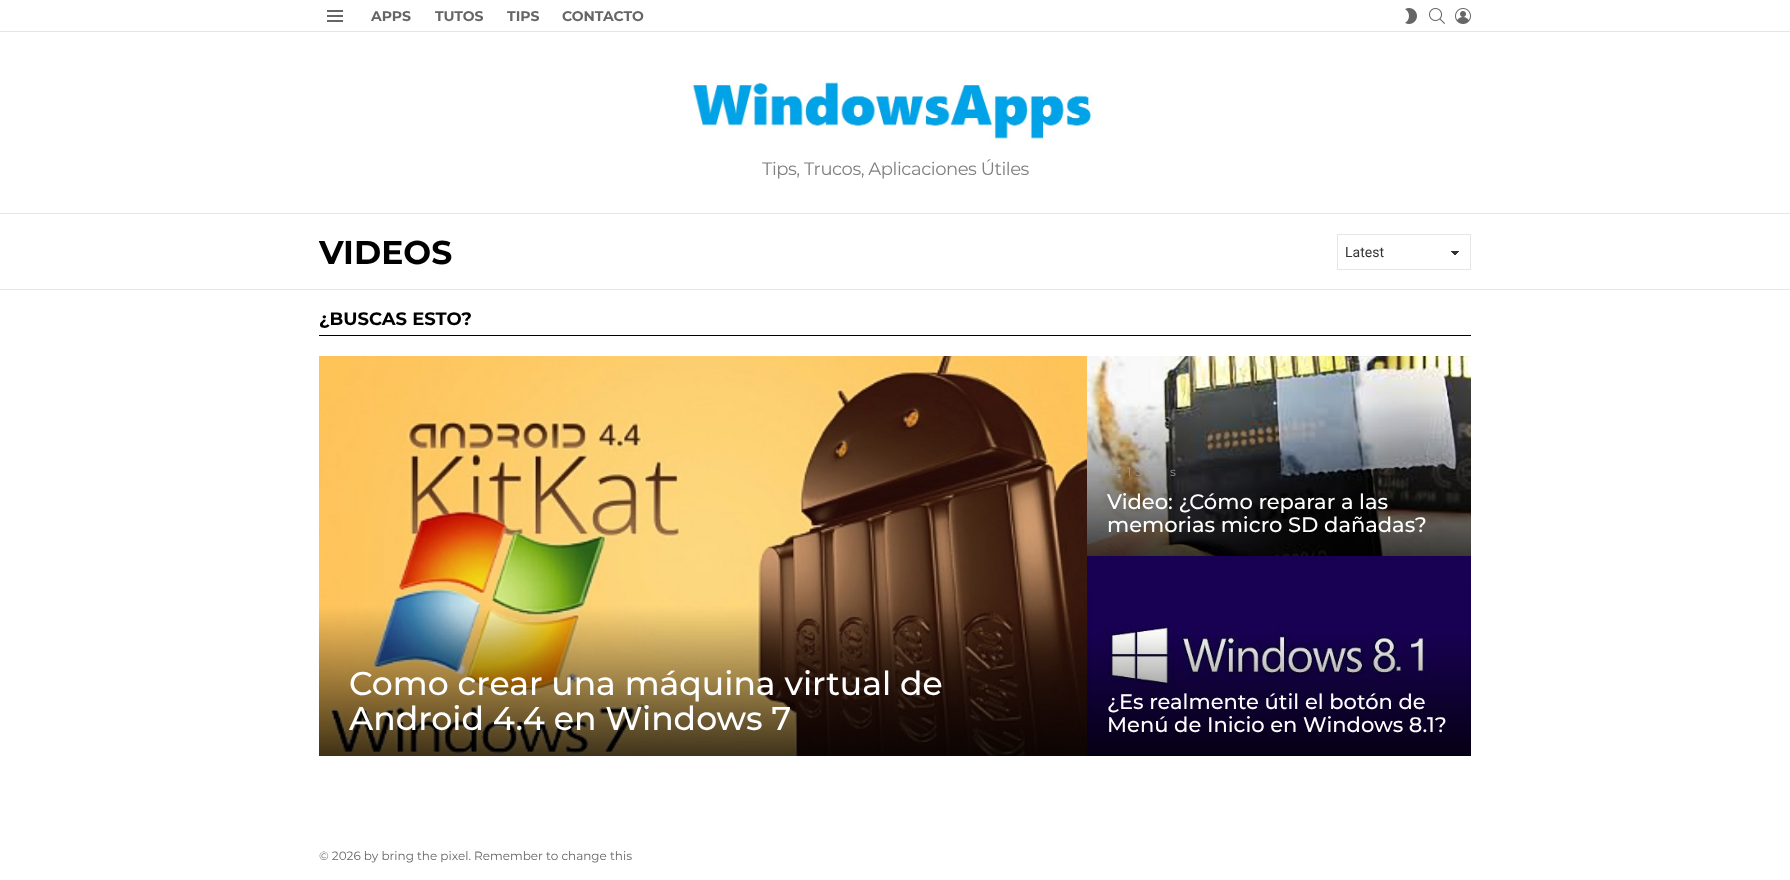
(async () => {
const canvas = document.querySelector("canvas")
canvas.width = 1790
canvas.height = 880
const c = canvas.getContext("2d")
c.miterLimit = 4
c.fontKerning = "normal"
function T(s,x,y){c.fillText(s,x,y)}
function R(x,y,w,h){c.fillRect(x,y,w,h)}
async function I(src,x,y,w,h){const img=new Image();img.src=src;await img.decode();c.drawImage(img,x,y,w,h)}
let gradient
c.fillStyle="#fff"
R(0,0,1790,880)
await I("1.png",327,10,16,12)
c.font="bold 14px Montserrat"
c.fillStyle="#666"
T("APPS",371,21)
T("TUTOS",435,21)
T("TIPS",507,21)
T("CONTACTO",562,21)
await I("2.png",1405,8,12,16)
await I("3.png",1429,8,16,16)
await I("4.png",1455,8,16,16)
c.fillStyle="#e6e6e6"
R(0,31,1790,1)
await I("5.png",690,81,403,63)
c.letterSpacing="-0.45px"
c.font="18px Montserrat"
c.fillStyle="#808080"
T("Tips, Trucos, Aplicaciones Útiles",762,175)
c.fillStyle="#e6e6e6"
R(0,213,1790,1)
c.letterSpacing="0px"
c.font="bold 33px Montserrat"
c.fillStyle="#000"
T("VIDEOS",319,264)
gradient = c.createLinearGradient(1455,251,1460,255)
gradient.addColorStop(.5,"#333")
gradient.addColorStop(.5,"#fff")
c.fillStyle = gradient
R(1455,251,5,4)
gradient = c.createLinearGradient(1450,255,1455,251)
gradient.addColorStop(.5,"#fff")
gradient.addColorStop(.5,"#333")
c.fillStyle = gradient
R(1450,251,5,4)
c.strokeStyle="#e6e6e6"
c.strokeRect(1337.5,234.5,133,35)
c.font="14px Roboto"
c.fillStyle="#333"
T("Latest",1345,257)
c.fillStyle="#e6e6e6"
R(0,289,1790,1)
c.fillStyle="#000"
R(319,335,1152,1)
c.font="bold 18px Montserrat"
T("¿BUSCAS ESTO?",319,325)
await I("6.png",1087,356,384,200)
await I("7.png",1110,466,11,12)
c.font="12px Montserrat"
c.fillStyle="#999"
T("1",1127,476)
T("S",1135,476)
T("s",1170,476)
c.font="500 21px Montserrat"
c.fillStyle="#fff"
T("Video: ¿Cómo reparar a las",1107,509)
T("memorias micro SD dañadas?",1107,532)
await I("8.png",319,356,768,400)
c.font="500 33px Montserrat"
T("Como crear una máquina virtual de",349,695)
T("Android 4.4 en Windows 7",349,730)
await I("9.png",1087,556,384,200)
c.font="500 21px Montserrat"
T("¿Es realmente útil el botón de",1107,709)
T("Menú de Inicio en Windows 8.1?",1107,732)
c.font="12px Montserrat"
c.fillStyle="#666"
T("© 2026 by bring the pixel. Remember to change this",319,860)
})()
